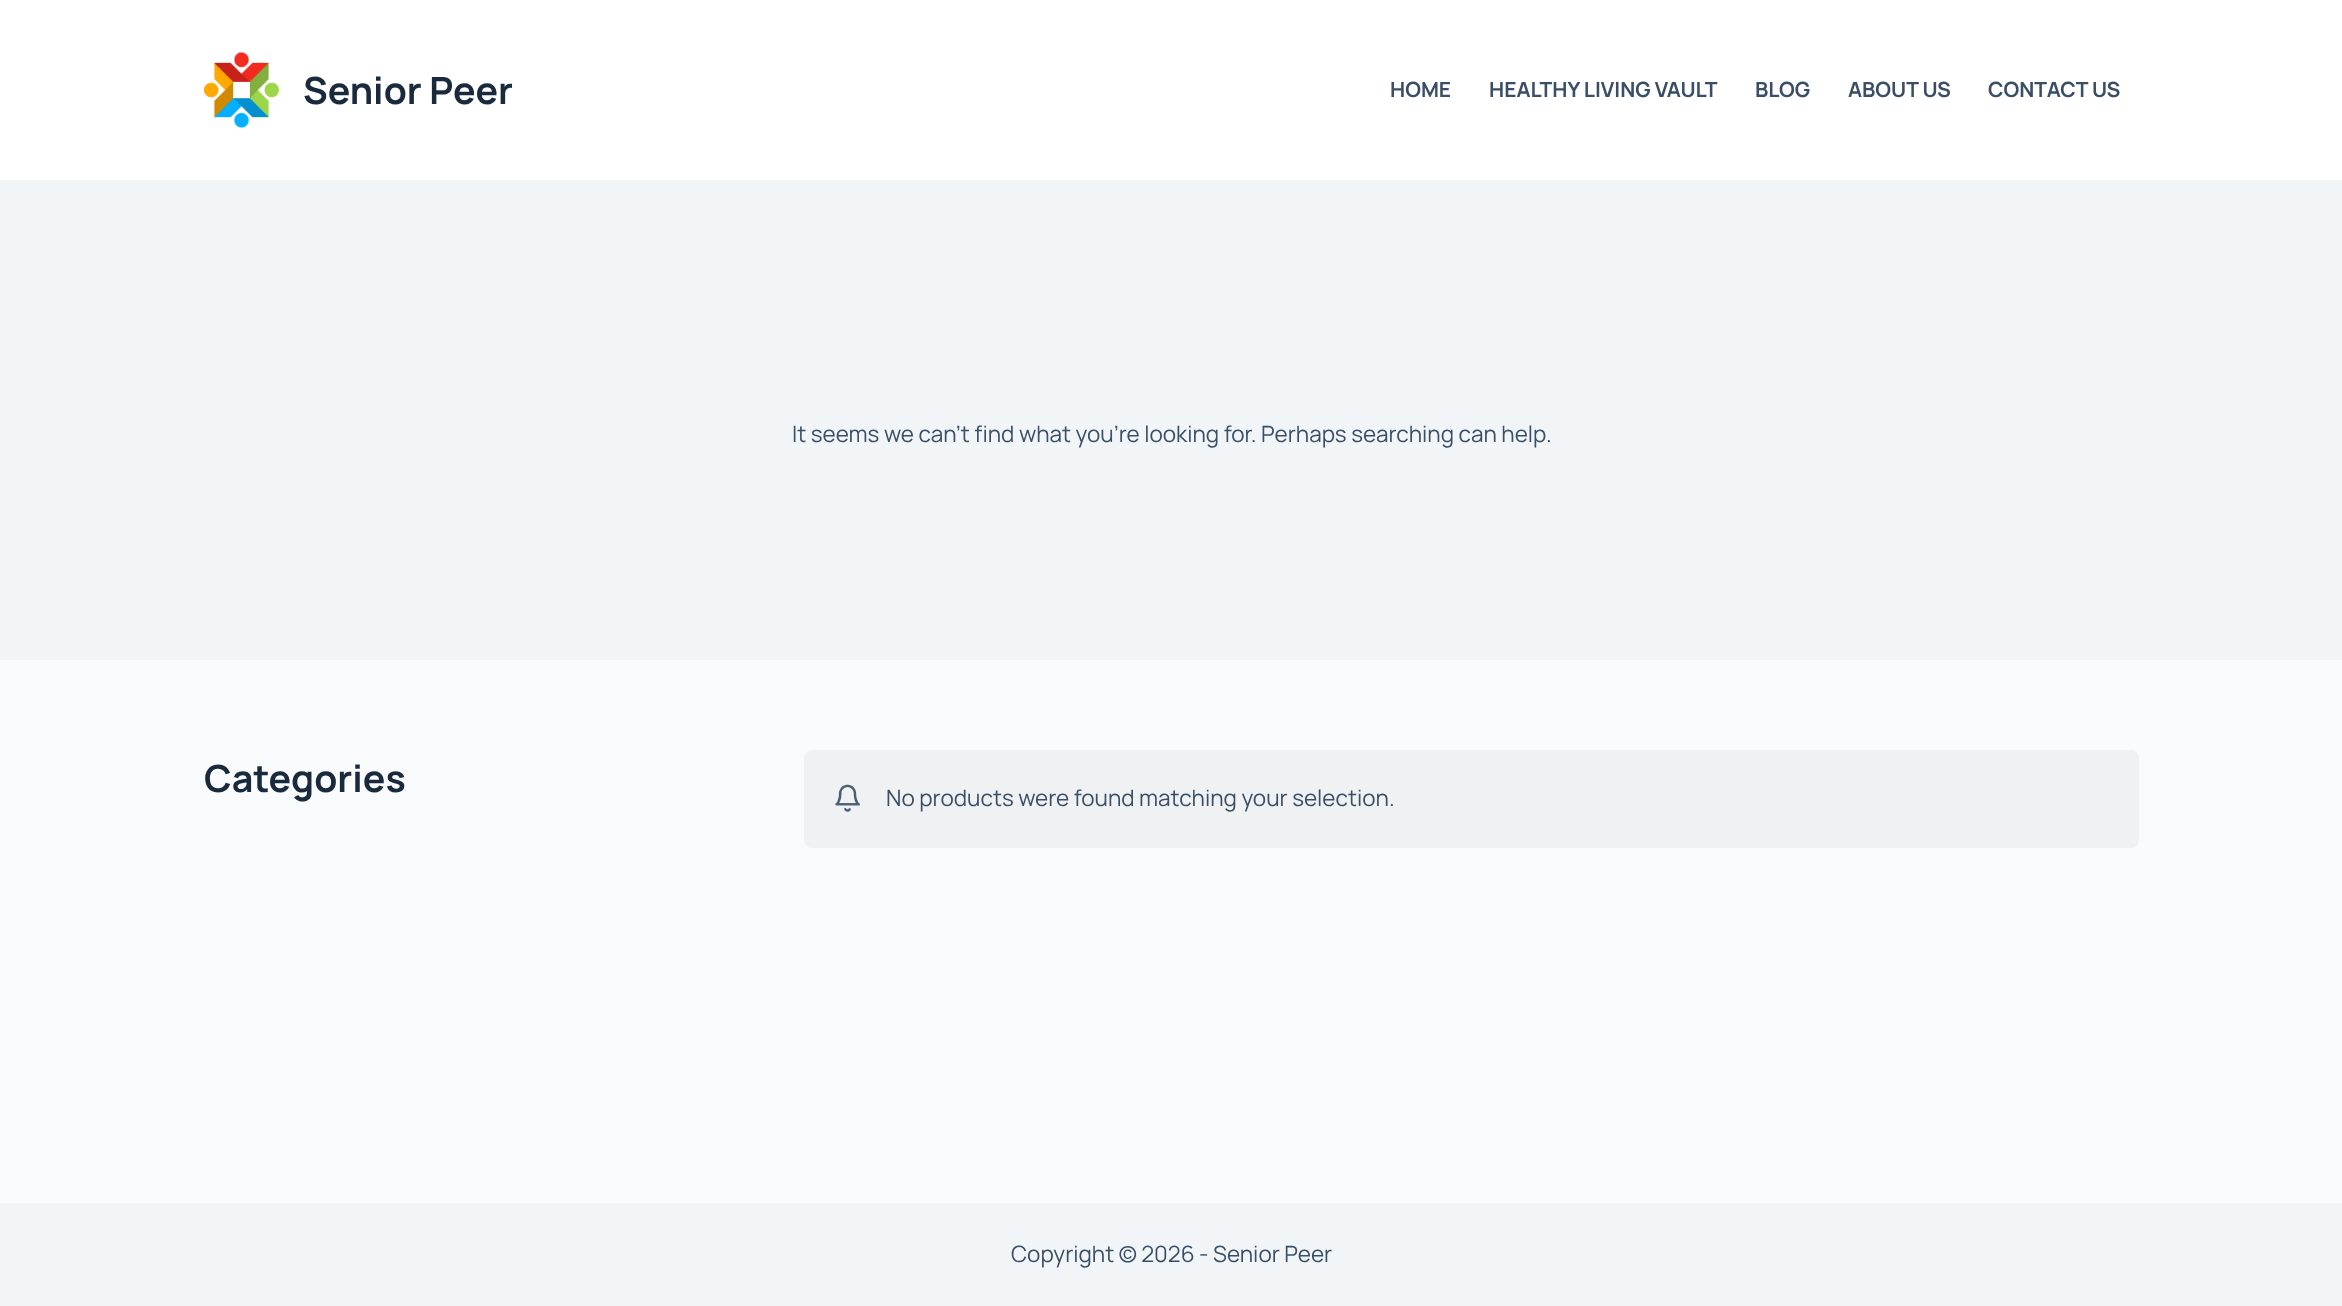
(async () => {
const canvas = document.querySelector("canvas")
canvas.width = 2342
canvas.height = 1306
const c = canvas.getContext("2d")
c.miterLimit = 4
c.fontKerning = "normal"
function T(s,x,y){c.fillText(s,x,y)}
function R(x,y,w,h){c.fillRect(x,y,w,h)}
function Q(x,y,w,h,r){c.beginPath();c.roundRect(x,y,w,h,r);c.fill()}
async function I(src,x,y,w,h){const img=new Image();img.src=src;await img.decode();c.drawImage(img,x,y,w,h)}
c.fillStyle="#fafbfc"
R(0,0,2342,1306)
c.fillStyle="#fff"
R(0,0,2342,180)
await I("1.png",204,52,75,76)
c.font="bold 37.5px Manrope"
c.fillStyle="#192a3d"
T("Senior Peer",303,104)
c.font="bold 21px Manrope"
c.fillStyle="#3a4f66"
T("HOME",1390,97)
T("HEALTHY LIVING VAULT",1489,97)
T("BLOG",1755,97)
T("ABOUT US",1848,97)
T("CONTACT US",1988,97)
c.fillStyle="#f2f5f7"
R(0,180,2342,480)
c.font="22.5px Manrope"
c.fillStyle="#3a4f66"
T("It seems we can't find what you're looking for. Perhaps searching can help.",792,442)
c.font="bold 37.5px Manrope"
c.fillStyle="#192a3d"
T("Categories",204,792)
c.fillStyle="#f0f1f3"
Q(804,750,1335,98,8)
await I("2.png",835,784,25,28)
c.font="22.5px Manrope"
c.fillStyle="#3a4f66"
T("No products were found matching your selection.",886,806)
c.fillStyle="#f2f5f7"
R(0,1203,2342,103)
c.fillStyle="#3a4f66"
T("Copyright © 2026 - Senior Peer",1011,1262)
})()
